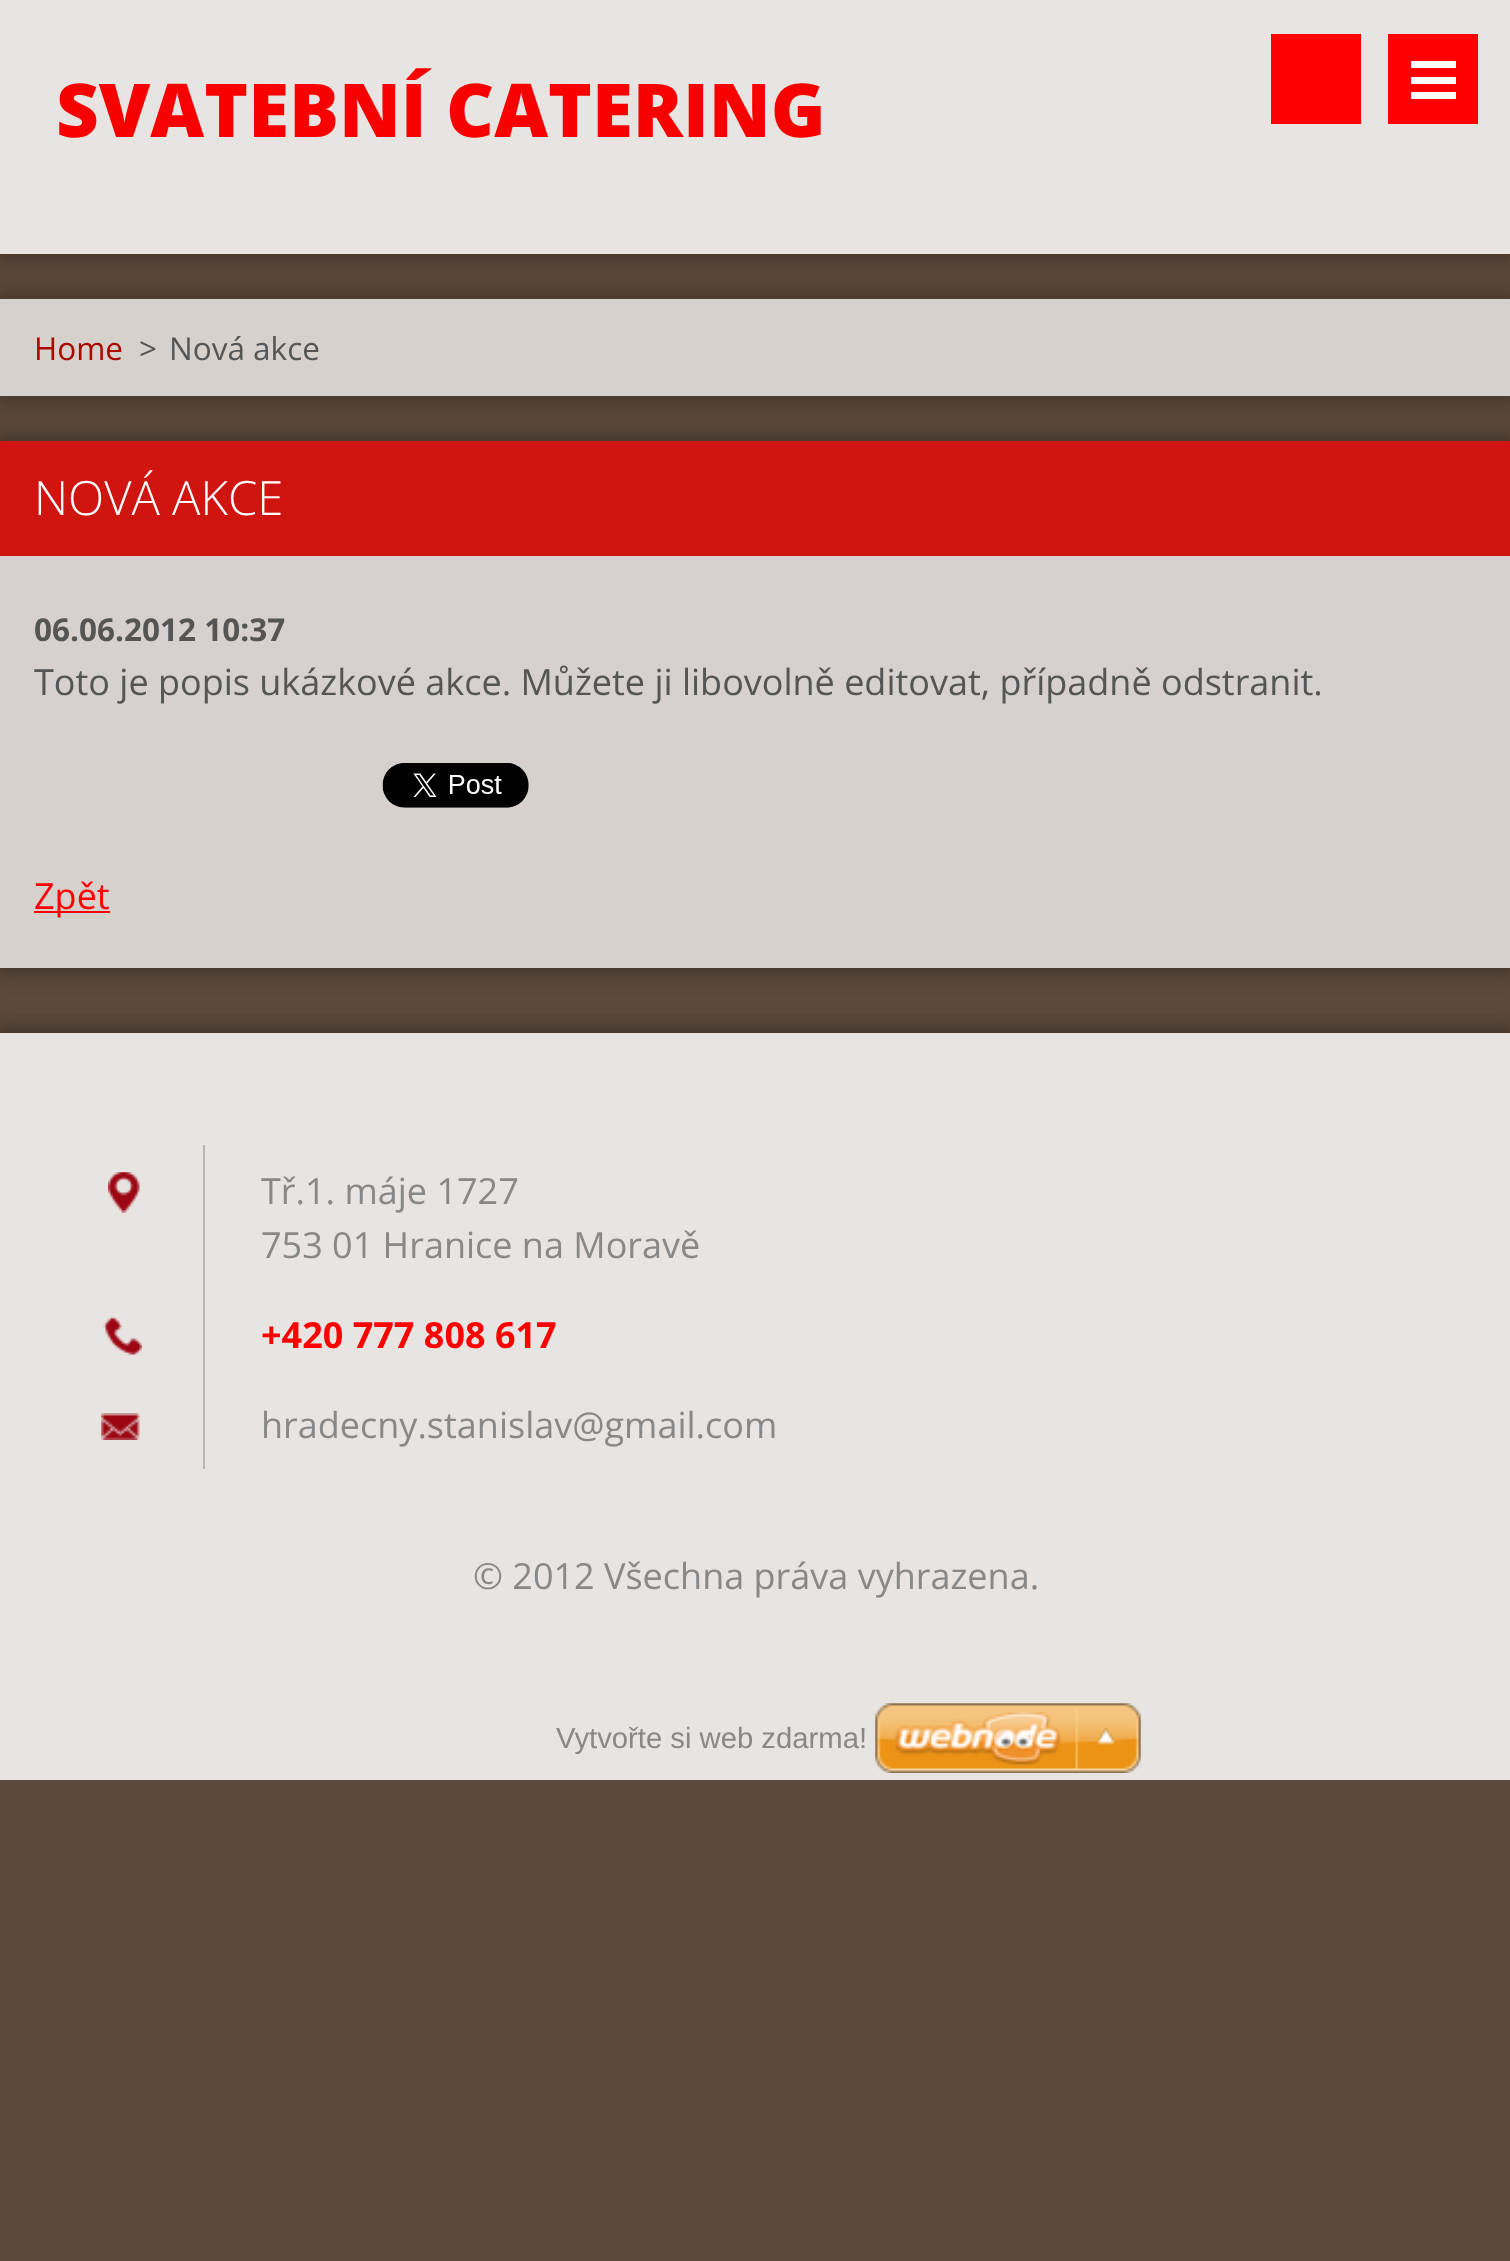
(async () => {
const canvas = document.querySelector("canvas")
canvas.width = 1510
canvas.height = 2261
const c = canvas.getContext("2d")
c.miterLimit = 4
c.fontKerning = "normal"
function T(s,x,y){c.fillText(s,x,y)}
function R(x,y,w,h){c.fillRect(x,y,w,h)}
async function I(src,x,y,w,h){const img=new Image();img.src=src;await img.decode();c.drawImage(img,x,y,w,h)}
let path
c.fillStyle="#5c493b"
R(0,0,1510,2261)
c.fillStyle="#00000040"
c.filter="blur(10px)"
c.beginPath()
c.rect(-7,-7,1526,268)
c.fill()
c.filter="none"
c.fillStyle="#e7e4e2"
R(0,0,1510,254)
c.font="800 74.25px Open Sans"
c.fillStyle="#f90000"
T("SVATEBNÍ CATERING",56,137)
c.fillStyle="#f00"
R(1271,34,90,90)
R(1388,34,90,90)
c.fillStyle="#fff"
R(1411,61,45,7)
R(1411,77,45,7)
R(1411,92,45,7)
c.save()
path = new Path2D("M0 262h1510v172h-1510zm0 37h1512v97h-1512z")
c.clip(path,"evenodd")
c.fillStyle="#00000040"
c.filter="blur(10px)"
c.beginPath()
c.rect(-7,293,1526,110)
c.fill()
c.filter="none"
c.restore()
c.fillStyle="#ffffffbf"
R(0,299,1510,97)
c.font="31.5px Open Sans"
c.fillStyle="#a70800"
T("Home",34,360)
c.fillStyle="#555"
T(">",139,360)
T("Nová akce",169,360)
c.save()
path = new Path2D("M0 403h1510v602h-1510zm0 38h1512v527h-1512z")
c.clip(path,"evenodd")
c.fillStyle="#00000040"
c.filter="blur(10px)"
c.beginPath()
c.rect(-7,434,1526,540)
c.fill()
c.filter="none"
c.restore()
c.fillStyle="#d01511"
R(0,441,1510,115)
c.font="300 47.25px Open Sans"
c.fillStyle="#fff"
T("NOVÁ AKCE",34,515)
c.fillStyle="#d6d1ce"
R(0,556,1510,207)
c.font="bold 31.5px Open Sans"
c.fillStyle="#555"
T("06.06.2012 10:37",34,641)
c.font="36px Open Sans"
T("Toto je popis ukázkové akce. Můžete ji libovolně editovat, případně odstranit.",34,695)
c.fillStyle="#ffffffbf"
R(0,763,1510,205)
await I("1.png",382,763,147,45)
c.fillStyle="#f00"
R(34,911,76,2)
T("Zpět",34,909)
c.save()
c.beginPath()
c.rect(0,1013,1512,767)
c.clip()
path = new Path2D("M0 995h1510v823h-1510zm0 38h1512v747h-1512z")
c.clip(path,"evenodd")
c.fillStyle="#00000040"
c.filter="blur(10px)"
c.beginPath()
c.rect(-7,1026,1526,761)
c.fill()
c.filter="none"
c.restore()
c.fillStyle="#ffffffd9"
R(0,1033,1510,747)
await I("2.png",108,1172,32,41)
c.fillStyle="#b7b7b7"
R(203,1145,2,324)
c.fillStyle="#888"
T("Tř.1. máje 1727",261,1204)
T("753 01 Hranice na Moravě",261,1258)
await I("3.png",103,1316,39,39)
c.font="bold 36px Open Sans"
c.fillStyle="#f00"
T("+420 777 808 617",261,1348)
await I("4.png",101,1413,39,27)
c.font="36px Open Sans"
c.fillStyle="#888"
T("hradecny.stanislav@gmail.com",261,1438)
T("© 2012 Všechna práva vyhrazena.",473,1589)
c.font="29.25px Liberation Sans"
T("Vytvořte si web zdarma!",556,1748)
await I("5.png",875,1703,266,70)
})()
